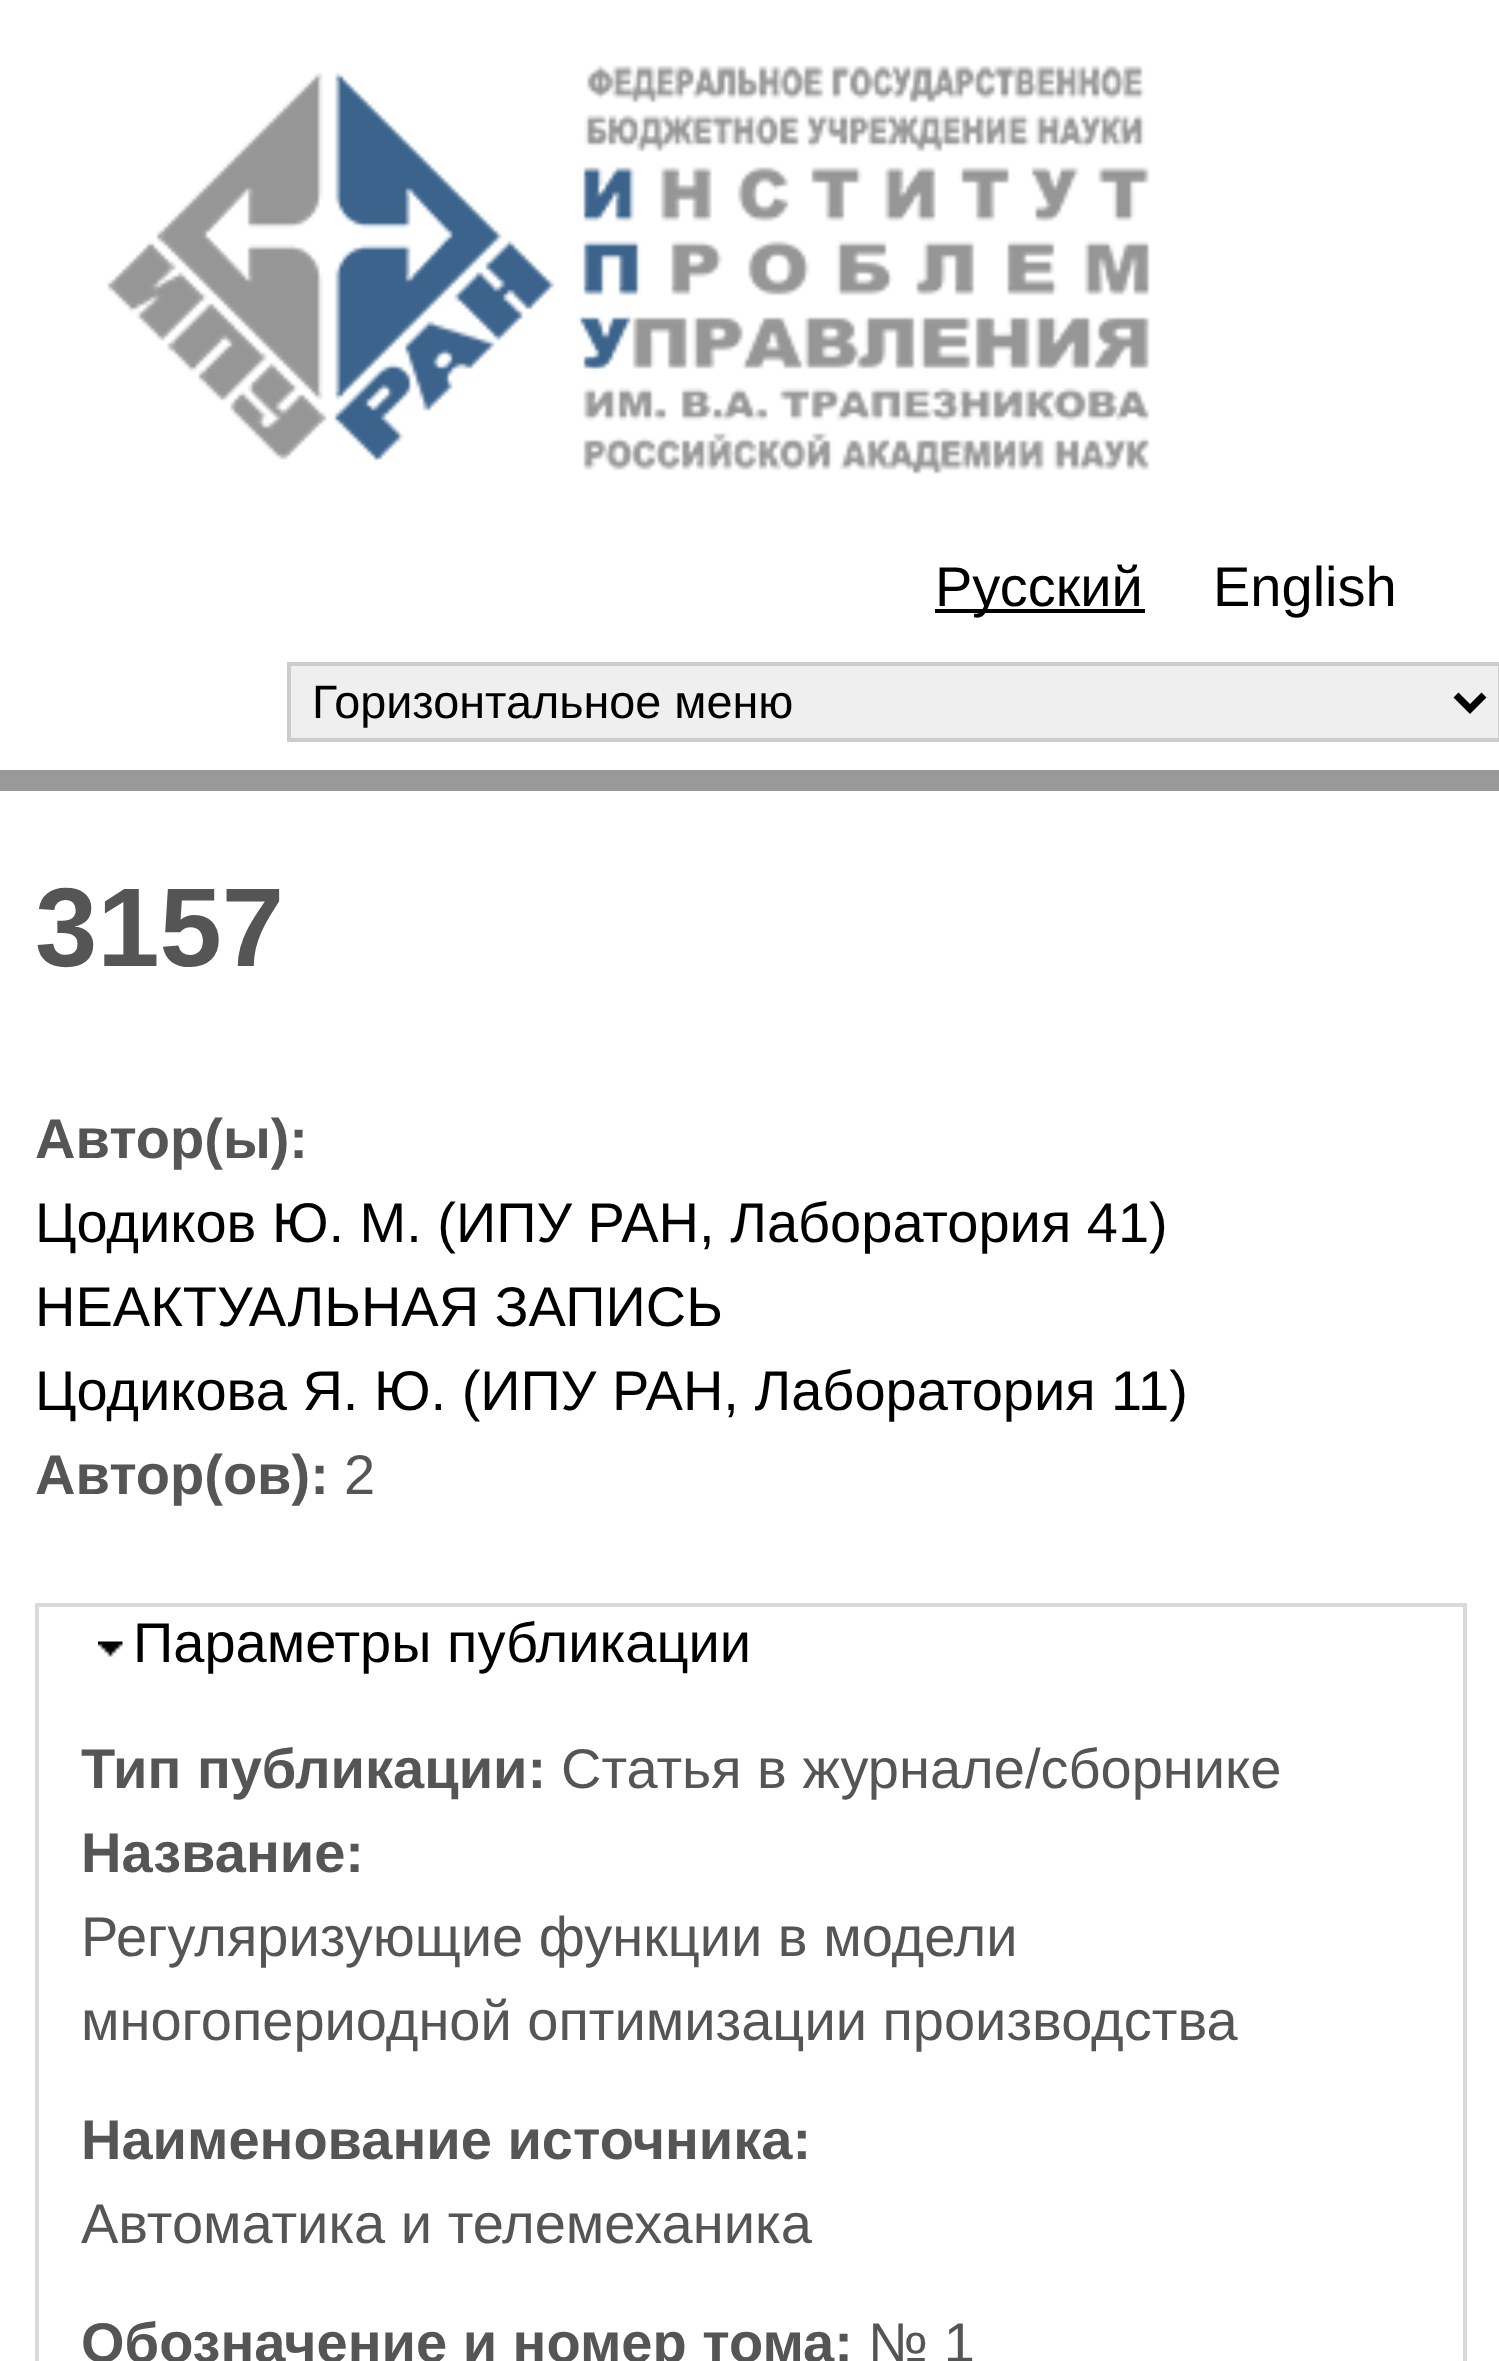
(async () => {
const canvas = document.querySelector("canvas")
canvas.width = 1499
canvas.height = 2361
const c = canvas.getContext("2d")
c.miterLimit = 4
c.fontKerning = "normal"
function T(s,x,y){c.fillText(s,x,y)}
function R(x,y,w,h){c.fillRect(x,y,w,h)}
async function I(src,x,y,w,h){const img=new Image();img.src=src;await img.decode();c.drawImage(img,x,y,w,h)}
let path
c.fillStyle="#fff"
R(0,0,1499,2361)
await I("1.png",107,65,1043,409)
c.fillStyle="#000"
R(935,609,210,4)
c.font="56px Liberation Sans"
T("Русский",935,606)
T("English",1213,606)
c.fillStyle="#999"
R(0,770,1499,21)
c.fillStyle="#efefef"
c.beginPath()
c.rect(289,664,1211,76)
c.fill()
c.strokeStyle="#ccc"
c.lineWidth=4
c.stroke()
path = new Path2D("M1456 695l14 14l14-14")
c.strokeStyle="#000"
c.lineWidth=7
c.stroke(path)
c.font="46.75px Liberation Sans"
c.fillStyle="#000"
T("Горизонтальное меню",312,718)
c.font="bold 112px Liberation Sans"
c.fillStyle="#555"
T("3157",35,966)
c.font="bold 56px Liberation Sans"
T("Автор(ы):",35,1158)
c.font="56px Liberation Sans"
c.fillStyle="#000"
T("Цодиков Ю. М. (ИПУ РАН, Лаборатория 41)",35,1242)
T("НЕАКТУАЛЬНАЯ ЗАПИСЬ",35,1326)
T("Цодикова Я. Ю. (ИПУ РАН, Лаборатория 11)",35,1410)
c.font="bold 56px Liberation Sans"
c.fillStyle="#555"
T("Автор(ов):",35,1494)
c.font="56px Liberation Sans"
T("2",344,1494)
c.strokeStyle="#dadada"
c.lineWidth=4
c.strokeRect(37,1605,1428,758)
await I("2.png",98,1641,25,16)
c.fillStyle="#000"
T("Параметры публикации",133,1662)
c.font="bold 56px Liberation Sans"
c.fillStyle="#555"
T("Тип публикации:",81,1788)
c.font="56px Liberation Sans"
T("Статья в журнале/сборнике",561,1788)
c.font="bold 56px Liberation Sans"
T("Название:",81,1872)
c.font="56px Liberation Sans"
T("Регуляризующие функции в модели",81,1956)
T("многопериодной оптимизации производства",81,2040)
c.font="bold 56px Liberation Sans"
T("Наименование источника:",81,2159)
c.font="56px Liberation Sans"
T("Автоматика и телемеханика",81,2243)
c.font="bold 56px Liberation Sans"
T("Обозначение и номер тома:",81,2362)
c.font="56px Liberation Sans"
T("№ 1",868,2362)
})()
